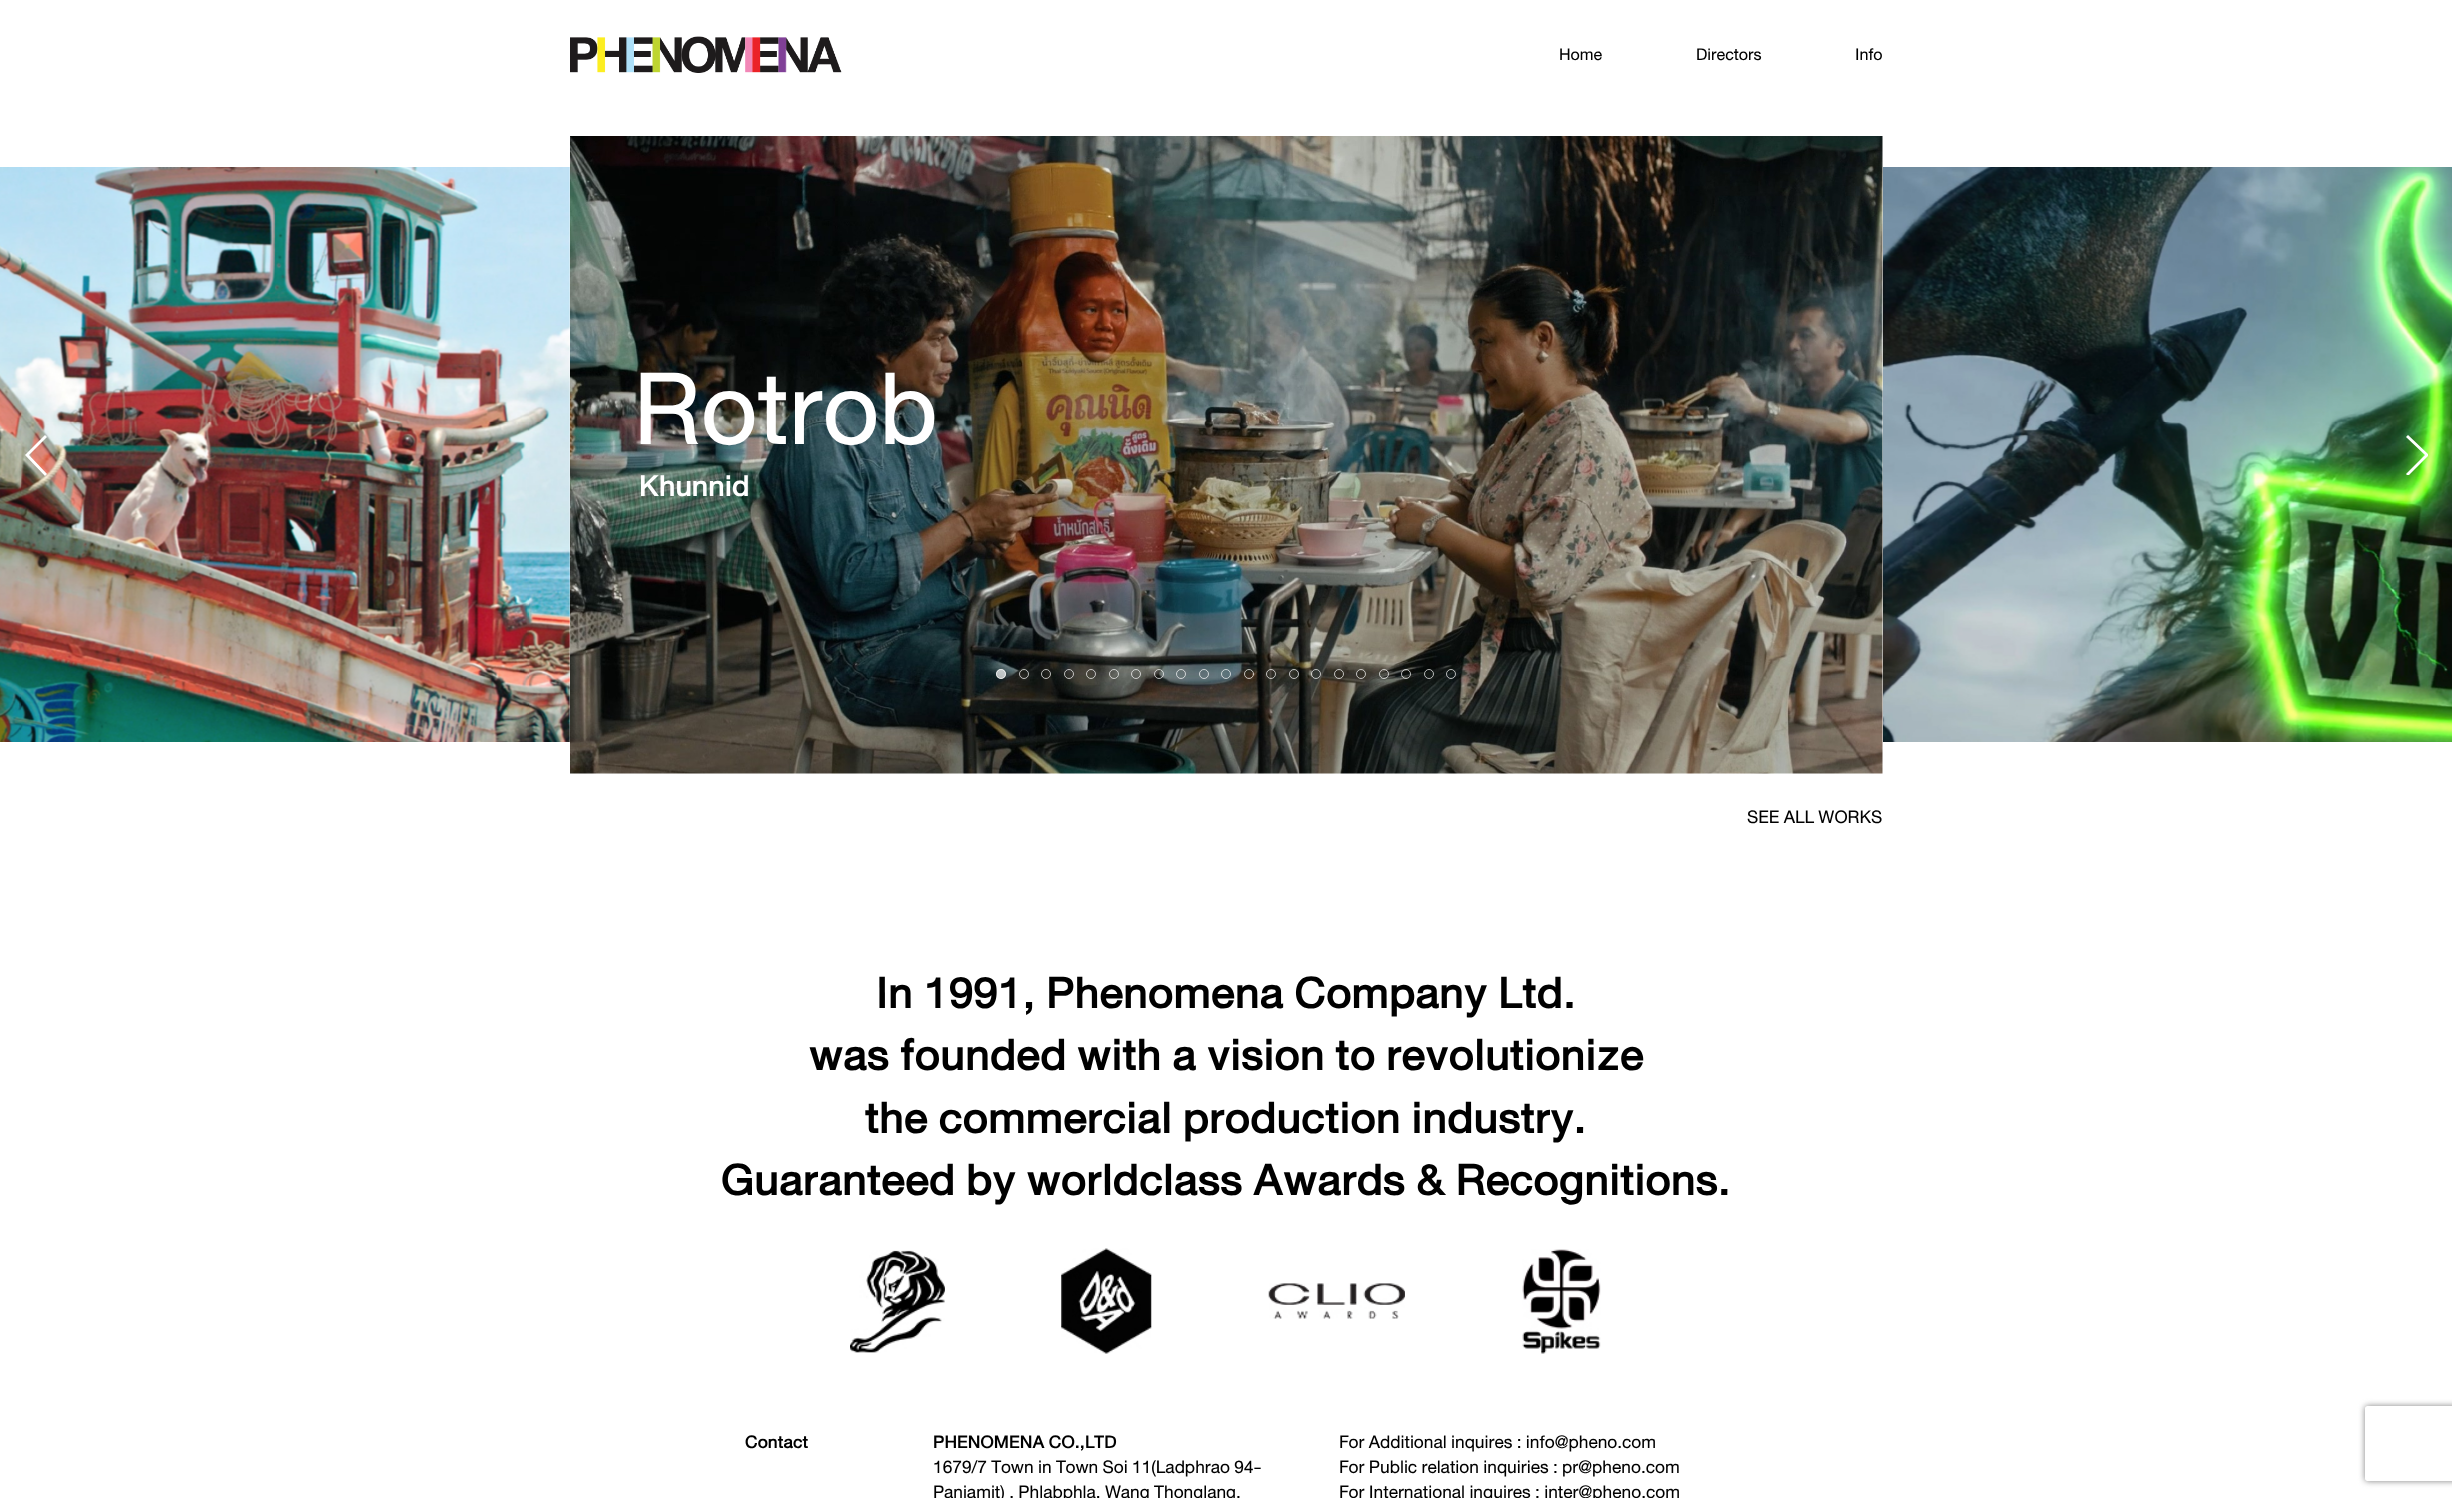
(async () => {
const canvas = document.querySelector("canvas")
canvas.width = 2452
canvas.height = 1498
const c = canvas.getContext("2d")
c.miterLimit = 4
c.fontKerning = "normal"
function T(s,x,y){c.fillText(s,x,y)}
function R(x,y,w,h){c.fillRect(x,y,w,h)}
async function I(src,x,y,w,h){const img=new Image();img.src=src;await img.decode();c.drawImage(img,x,y,w,h)}
let path
c.fillStyle="#fff"
R(0,0,2452,1498)
await I("1.png",570,36,272,37)
c.font="16.25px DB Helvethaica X"
c.fillStyle="#000"
T("Home",1559,60)
T("Directors",1696,60)
T("Info",1855,60)
await I("2.png",0,167,570,575)
await I("3.png",570,136,1313,638)
await I("4.png",1883,167,569,575)
c.fillStyle="#fff"
path = new Path2D("M25 455l20-20l2 2l-18 18l18 19l-2 2z")
c.fill(path)
c.save()
c.beginPath()
c.rect(2404,435,24,40)
c.clip()
path = new Path2D("M2429 455l-21 21l-2-2l19-19l-19-18l2-2z")
c.fill(path)
c.restore()
c.fillStyle="#ffffffb3"
c.beginPath()
c.arc(1001,674,5,0,7)
c.fill()
c.beginPath()
c.arc(1001,674,4.5,0,7)
c.strokeStyle="#ffffffb3"
c.stroke()
c.beginPath()
c.arc(1024,674,4.5,0,7)
c.stroke()
c.beginPath()
c.arc(1046,674,4.5,0,7)
c.stroke()
c.beginPath()
c.arc(1069,674,4.5,0,7)
c.stroke()
c.beginPath()
c.arc(1091,674,4.5,0,7)
c.stroke()
c.beginPath()
c.arc(1114,674,4.5,0,7)
c.stroke()
c.beginPath()
c.arc(1136,674,4.5,0,7)
c.stroke()
c.beginPath()
c.arc(1159,674,4.5,0,7)
c.stroke()
c.beginPath()
c.arc(1181,674,4.5,0,7)
c.stroke()
c.beginPath()
c.arc(1204,674,4.5,0,7)
c.stroke()
c.beginPath()
c.arc(1226,674,4.5,0,7)
c.stroke()
c.beginPath()
c.arc(1249,674,4.5,0,7)
c.stroke()
c.beginPath()
c.arc(1271,674,4.5,0,7)
c.stroke()
c.beginPath()
c.arc(1294,674,4.5,0,7)
c.stroke()
c.beginPath()
c.arc(1316,674,4.5,0,7)
c.stroke()
c.beginPath()
c.arc(1339,674,4.5,0,7)
c.stroke()
c.beginPath()
c.arc(1361,674,4.5,0,7)
c.stroke()
c.beginPath()
c.arc(1384,674,4.5,0,7)
c.stroke()
c.beginPath()
c.arc(1406,674,4.5,0,7)
c.stroke()
c.beginPath()
c.arc(1429,674,4.5,0,7)
c.stroke()
c.beginPath()
c.arc(1451,674,4.5,0,7)
c.stroke()
c.font="100px DB Helvethaica X"
c.fillStyle="#fff"
T("Rotrob",633,444)
c.font="500 29px DB Helvethaica X"
T("Khunnid",639,496)
c.font="17.5px DB Helvethaica X"
c.fillStyle="#000"
T("SEE ALL WORKS",1747,823)
c.font="500 43.75px DB Helvethaica X"
T("In 1991, Phenomena Company Ltd.",876,1008)
T("was founded with a vision to revolutionize",809,1070)
T("the commercial production industry.",865,1133)
T("Guaranteed by worldclass Awards & Recognitions.",721,1195)
await I("5.png",850,1250,95,103)
await I("6.png",1061,1248,91,106)
await I("7.png",1268,1283,137,36)
await I("8.png",1522,1249,79,105)
c.font="500 17.5px DB Helvethaica X"
T("Contact",745,1448)
T("PHENOMENA CO.,LTD",933,1448)
c.font="17.5px DB Helvethaica X"
T("1679/7 Town in Town Soi 11(Ladphrao 94-",933,1473)
T("Panjamit) , Phlabphla, Wang Thonglang,",933,1498)
T("For Additional inquires : info@pheno.com",1339,1448)
T("For Public relation inquiries : pr@pheno.com",1339,1473)
T("For International inquires : inter@pheno.com",1339,1498)
c.save()
path = new Path2D("M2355 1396h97v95h-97zm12.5 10h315c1.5 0 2.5 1 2.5 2.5v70c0 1.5-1 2.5-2.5 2.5h-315c-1.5 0-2.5-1-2.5-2.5v-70c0-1.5 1-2.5 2.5-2.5z")
c.clip(path,"evenodd")
c.fillStyle="#808080"
c.filter="blur(3px)"
c.beginPath()
c.roundRect(2365,1406,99,75,2.5)
c.fill()
c.filter="none"
c.restore()
})()
